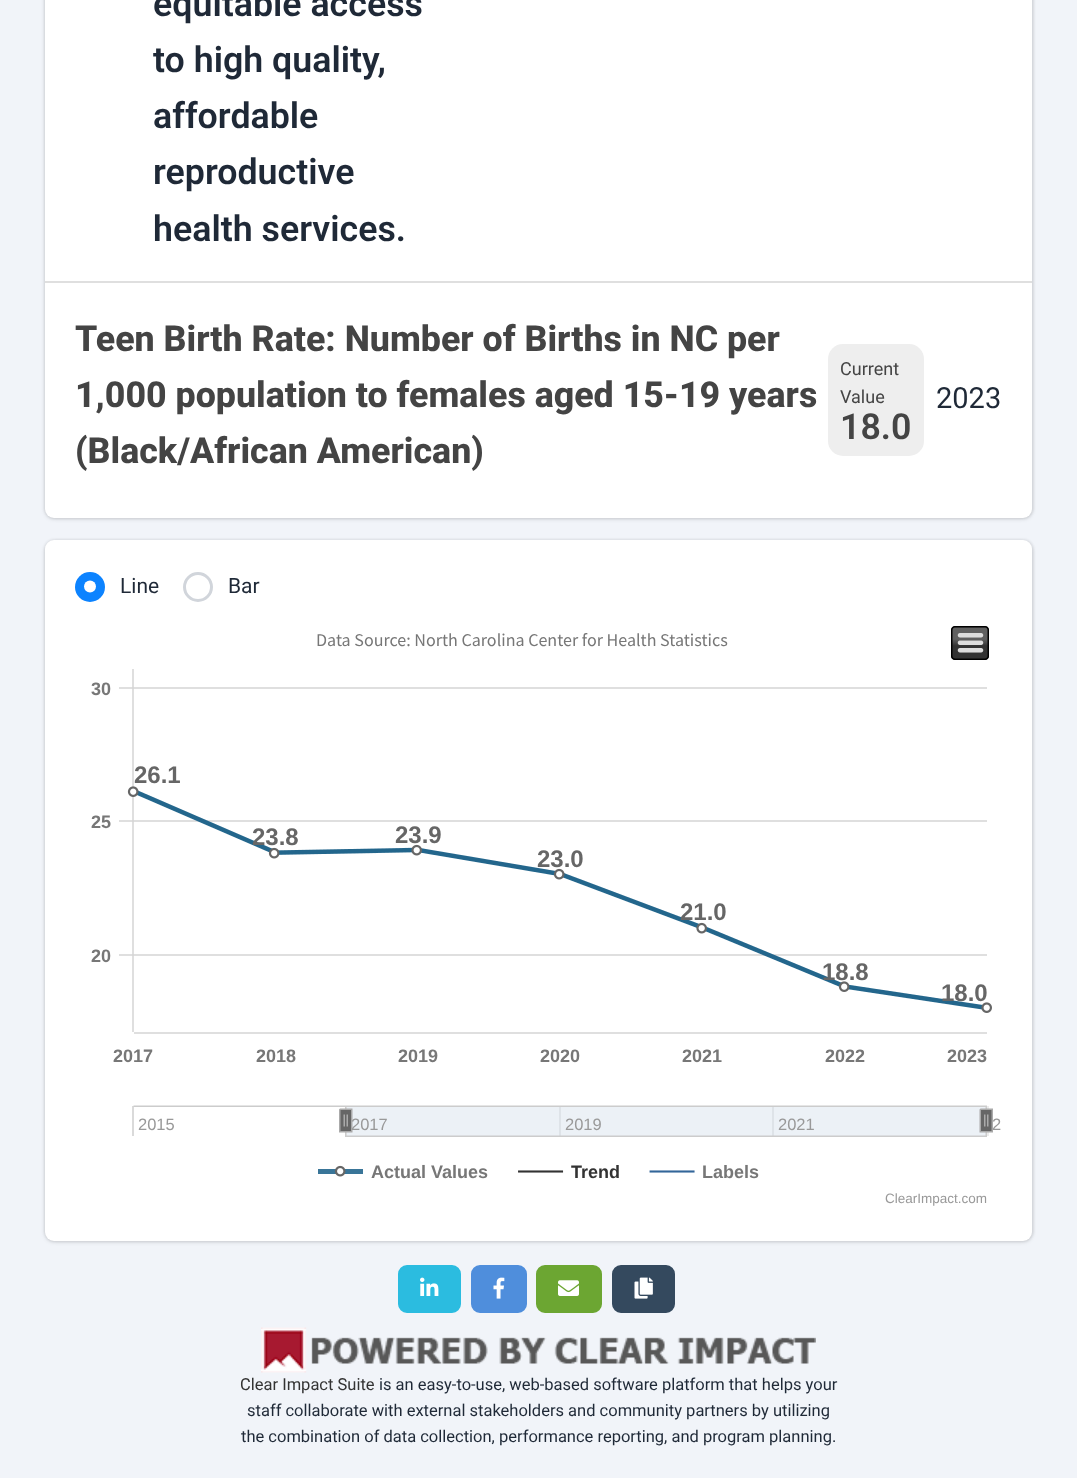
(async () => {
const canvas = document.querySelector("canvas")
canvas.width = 1077
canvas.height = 1478
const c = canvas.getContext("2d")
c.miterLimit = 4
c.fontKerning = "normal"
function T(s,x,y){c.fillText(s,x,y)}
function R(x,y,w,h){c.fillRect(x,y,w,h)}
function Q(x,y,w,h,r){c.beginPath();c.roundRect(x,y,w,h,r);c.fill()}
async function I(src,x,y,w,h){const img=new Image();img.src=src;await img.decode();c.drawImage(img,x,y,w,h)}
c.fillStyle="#f1f4f9"
R(0,0,1077,1478)
c.fillStyle="#0000001f"
c.filter="blur(2px)"
c.beginPath()
c.roundRect(45,-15,987,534,9)
c.fill()
c.filter="none"
c.fillStyle="#00000012"
c.filter="blur(1px)"
c.beginPath()
c.roundRect(44,-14,990,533,11)
c.fill()
c.filter="none"
c.fillStyle="#fff"
Q(45,-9,987,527,9)
c.fillStyle="#dfdfdf"
R(45,281,987,2)
c.font="600 35.75px Roboto"
c.fillStyle="#1f2937"
T("equitable access",153,16)
T("to high quality,",153,72)
T("affordable",153,128)
T("reproductive",153,184)
T("health services.",153,241)
c.font="800 35.75px Roboto"
c.fillStyle="#444"
T("Teen Birth Rate: Number of Births in NC per",75,351)
T("1,000 population to females aged 15-19 years",75,407)
T("(Black/African American)",75,463)
c.fillStyle="#eee"
Q(828,344,96,112,15)
c.font="18px Roboto"
c.fillStyle="#444"
T("Current",840,375)
T("Value",840,403)
c.font="600 35.75px Roboto"
T("18.0",840,439)
c.font="29px Roboto"
c.fillStyle="#1f2937"
T("2023",936,408)
c.fillStyle="#0000001f"
c.filter="blur(2px)"
c.beginPath()
c.roundRect(45,542,987,700,9)
c.fill()
c.filter="none"
c.fillStyle="#00000012"
c.filter="blur(1px)"
c.beginPath()
c.roundRect(44,539,990,703,11)
c.fill()
c.filter="none"
c.fillStyle="#fff"
Q(45,540,987,701,9)
c.fillStyle="#0c83ff"
c.beginPath()
c.arc(90,587,15,0,7)
c.fill()
c.fillStyle="#fff"
c.beginPath()
c.arc(90,586.5,6,0,7)
c.fill()
c.font="21px Roboto"
c.fillStyle="#1f2937"
T("Line",120,593)
c.beginPath()
c.arc(198,587,13.5,0,7)
c.strokeStyle="#d1d5db"
c.lineWidth=3
c.stroke()
T("Bar",228,593)
await I("1.png",119,626,874,551)
c.font="18px Source Sans Pro"
c.fillStyle="#777"
T("Data Source: North Carolina Center for Health Statistics",316,646)
c.font="bold 18px Liberation Sans"
T("30",91,695)
c.font="bold 24px Liberation Sans"
c.fillStyle="#666"
T("26.1",134,783)
c.font="bold 18px Liberation Sans"
c.fillStyle="#777"
T("25",91,828)
c.font="bold 24px Liberation Sans"
c.fillStyle="#666"
T("23.8",252,845)
T("23.9",395,843)
T("23.0",537,867)
T("21.0",680,920)
c.font="bold 18px Liberation Sans"
c.fillStyle="#777"
T("20",91,962)
c.font="bold 24px Liberation Sans"
c.fillStyle="#666"
T("18.8",822,980)
T("18.0",941,1001)
c.font="bold 18px Liberation Sans"
c.fillStyle="#777"
T("2017",113,1062)
T("2018",256,1062)
T("2019",398,1062)
T("2020",540,1062)
T("2021",682,1062)
T("2022",825,1062)
T("2023",947,1062)
c.font="16.5px Liberation Sans"
c.fillStyle="#999"
T("2015",138,1130)
T("2017",351,1130)
T("2019",565,1130)
T("2021",778,1130)
T("2",992,1130)
c.font="bold 18px Liberation Sans"
c.fillStyle="#777"
T("Actual Values",371,1178)
c.fillStyle="#333"
T("Trend",571,1178)
c.fillStyle="#777"
T("Labels",702,1178)
c.font="13.5px Liberation Sans"
c.fillStyle="#999"
T("ClearImpact.com",885,1203)
c.fillStyle="#2bbce0"
c.beginPath()
c.roundRect(399,1266,61,46,8)
c.fill()
c.strokeStyle="#2bbce0"
c.lineWidth=2
c.stroke()
await I("2.png",420,1277,19,19)
c.fillStyle="#4f8edc"
c.beginPath()
c.roundRect(472,1266,54,46,8)
c.fill()
c.strokeStyle="#4f8edc"
c.stroke()
await I("3.png",493,1277,12,22)
c.fillStyle="#6ca632"
c.beginPath()
c.roundRect(537,1266,64,46,8)
c.fill()
c.strokeStyle="#6ca632"
c.stroke()
await I("4.png",558,1280,21,16)
c.fillStyle="#34495e"
c.beginPath()
c.roundRect(613,1266,61,46,8)
c.fill()
c.strokeStyle="#34495e"
c.stroke()
await I("5.png",634,1277,19,22)
await I("6.png",261,1327,555,46)
c.font="16.5px Roboto"
c.fillStyle="#333"
T("Clear Impact Suite",240,1390)
c.fillStyle="#1f2937"
T("is an easy-to-use, web-based software platform that helps your",379,1390)
T("staff collaborate with external stakeholders and community partners by utilizing",247,1416)
T("the combination of data collection, performance reporting, and program planning.",241,1442)
})()
